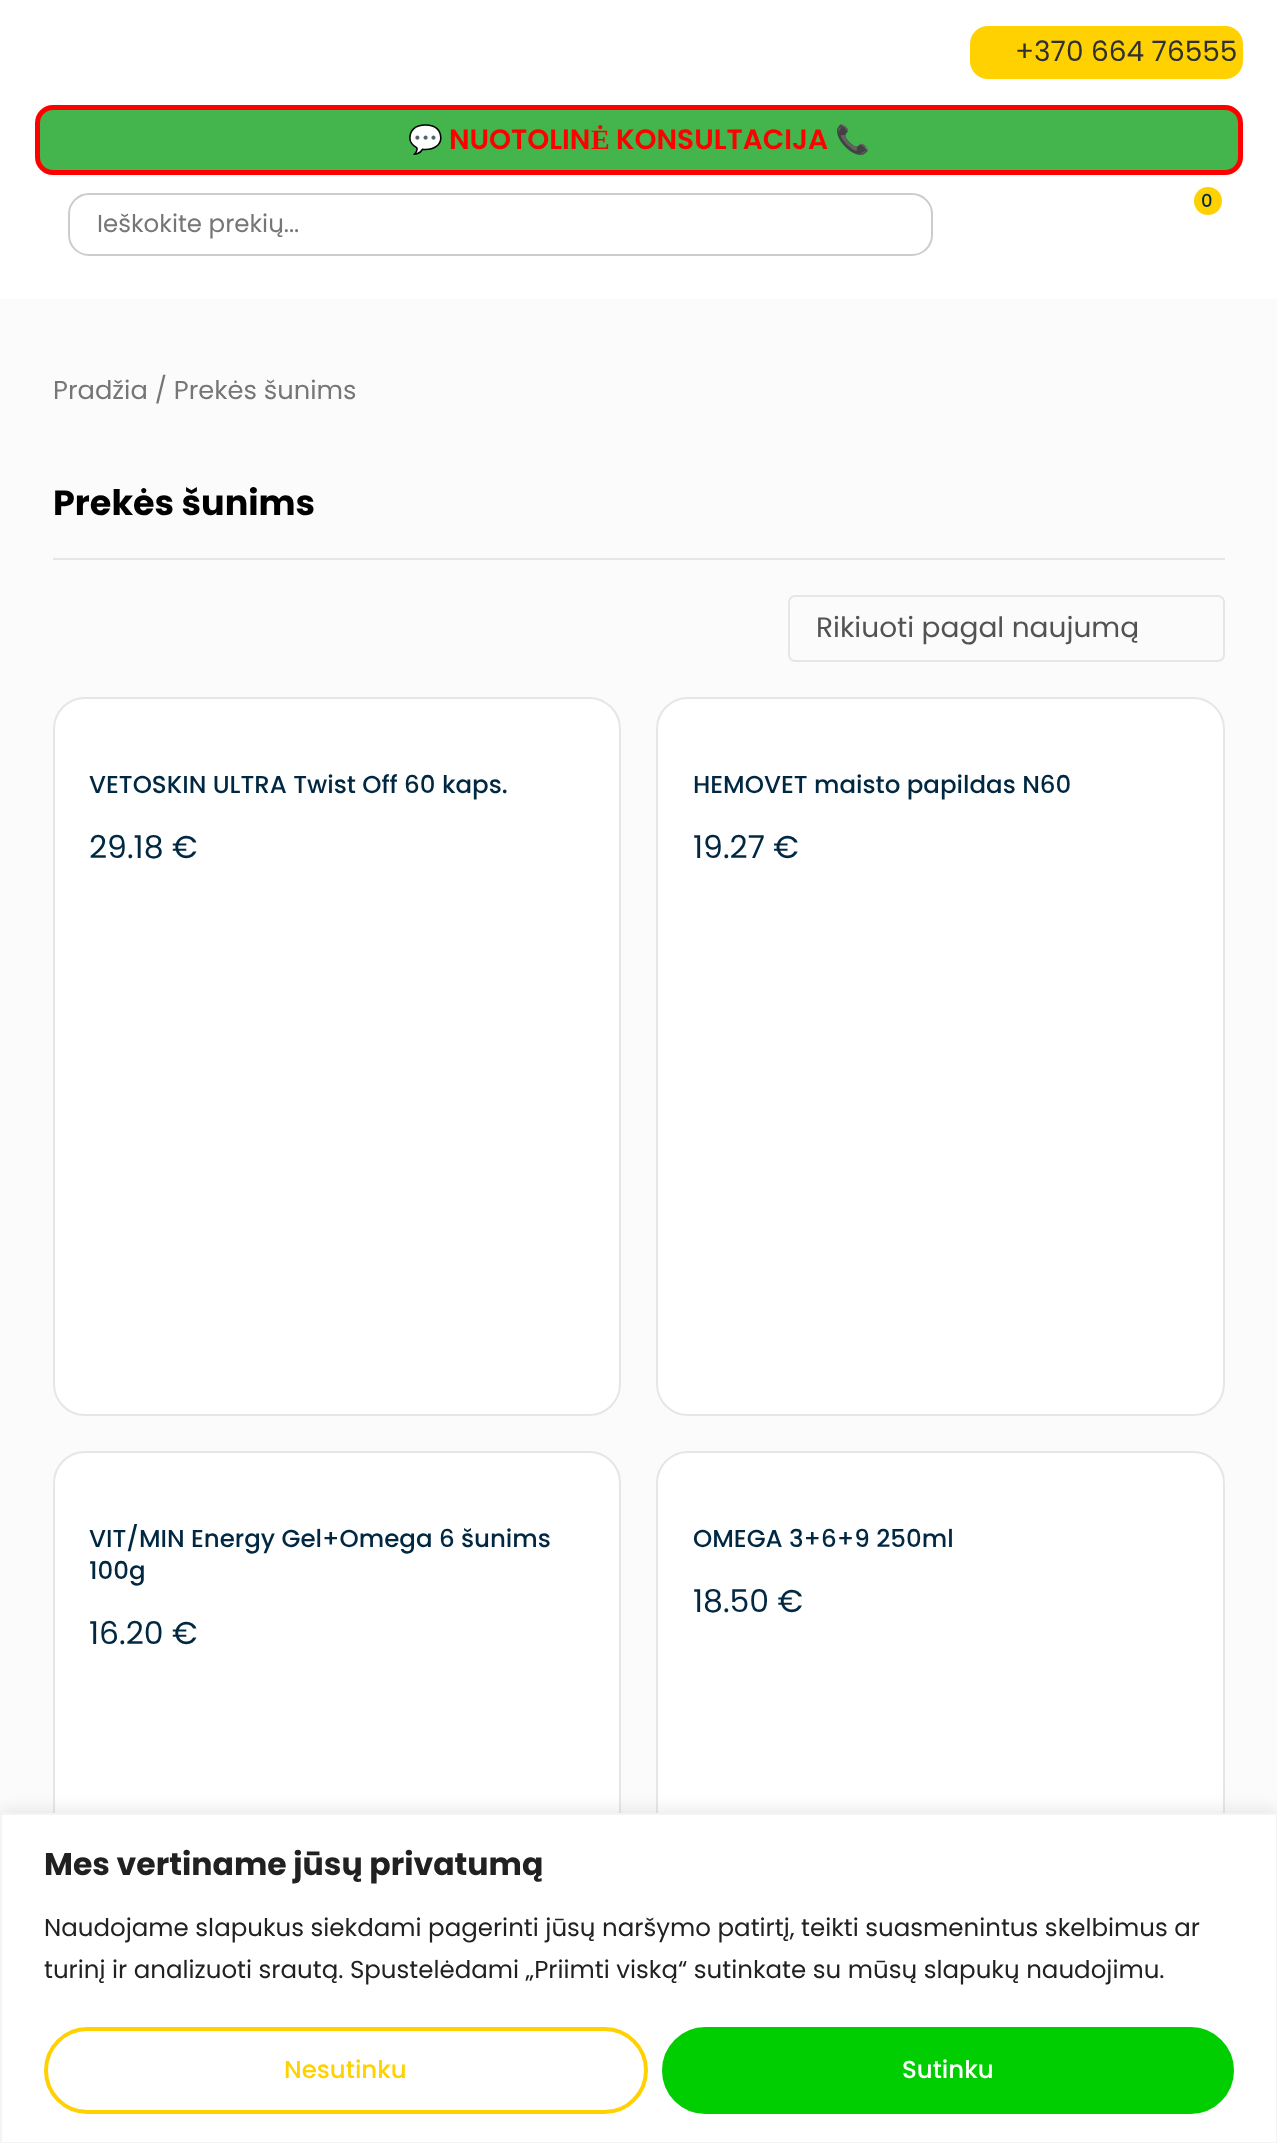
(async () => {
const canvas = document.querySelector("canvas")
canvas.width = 1277
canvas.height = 2143
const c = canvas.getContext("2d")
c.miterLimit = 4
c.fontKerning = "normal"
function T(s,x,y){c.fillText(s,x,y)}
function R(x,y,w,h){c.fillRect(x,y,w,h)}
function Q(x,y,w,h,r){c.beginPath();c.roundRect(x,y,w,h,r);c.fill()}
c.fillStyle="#fbfbfb"
R(0,0,1277,2143)
c.fillStyle="#fff"
R(0,0,1277,299)
c.fillStyle="#ffd100"
Q(970,26,273,53,18)
c.font="28px Poppins"
c.fillStyle="#2e3031"
T("+370 664 76555",1015,61)
c.fillStyle="#44b44c"
c.beginPath()
c.roundRect(37.5,107.5,1203,65,15.5)
c.fill()
c.strokeStyle="#f00"
c.lineWidth=5
c.stroke()
c.font="bold 28px Noto Color Emoji"
c.fillStyle="#f00"
T("💬",408,149)
c.font="600 28px Poppins"
T("NUOTOLIN",449,149)
c.font="bold 28px Liberation Serif"
T("Ė",591,149)
c.font="600 28px Poppins"
T("KONSULTACIJA",616,149)
c.font="bold 28px Noto Color Emoji"
T("📞",835,149)
c.fillStyle="#ffd100"
c.beginPath()
c.arc(1208,201,14,0,7)
c.fill()
c.font="500 18px Poppins"
c.fillStyle="#002842"
T("0",1201,207)
c.beginPath()
c.roundRect(69,194,863,61,20)
c.strokeStyle="#ccc"
c.lineWidth=2
c.stroke()
c.font="24.5px Poppins"
c.fillStyle="#767676"
T("Ieškokite prekių...",97,232)
c.font="25.75px Poppins"
T("Pradžia / Prekės šunims",53,399)
c.font="bold 35px Poppins"
c.fillStyle="#000"
T("Prekės šunims",53,515)
c.fillStyle="#e6e6e6"
R(53,558,1172,2)
c.beginPath()
c.roundRect(789,596,435,65,6)
c.strokeStyle="#e6e6e6"
c.stroke()
c.font="28px Poppins"
c.fillStyle="#525252"
T("Rikiuoti pagal naujumą",816,637)
c.fillStyle="#fff"
c.beginPath()
c.roundRect(54,698,566,717,31)
c.fill()
c.stroke()
c.font="500 24.5px Poppins"
c.fillStyle="#002842"
T("VETOSKIN ULTRA Twist Off 60 kaps.",89,793)
c.font="31.5px Poppins"
T("29.18 €",89,858)
c.fillStyle="#fff"
c.beginPath()
c.roundRect(657,698,567,717,31)
c.fill()
c.stroke()
c.font="500 24.5px Poppins"
c.fillStyle="#002842"
T("HEMOVET maisto papildas N60",693,793)
c.font="31.5px Poppins"
T("19.27 €",693,858)
c.fillStyle="#fff"
c.beginPath()
c.roundRect(54,1452,566,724,31)
c.fill()
c.stroke()
c.font="500 24.5px Poppins"
c.fillStyle="#002842"
T("VIT/MIN Energy Gel+Omega 6 šunims",89,1547)
T("100g",89,1579)
c.font="31.5px Poppins"
T("16.20 €",89,1644)
c.fillStyle="#fff"
c.beginPath()
c.roundRect(657,1452,567,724,31)
c.fill()
c.stroke()
c.font="500 24.5px Poppins"
c.fillStyle="#002842"
T("OMEGA 3+6+9 250ml",693,1547)
c.font="31.5px Poppins"
T("18.50 €",693,1612)
c.fillStyle="#acabab4d"
c.filter="blur(9px)"
c.beginPath()
c.rect(0,1811,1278,331)
c.fill()
c.filter="none"
c.fillStyle="#fff"
c.beginPath()
c.rect(1,1814,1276,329)
c.fill()
c.strokeStyle="#f4f4f4"
c.stroke()
c.font="bold 31.5px Poppins"
c.fillStyle="#212121"
T("Mes vertiname jūsų privatumą",44,1875)
c.font="24.5px Poppins"
T("Naudojame slapukus siekdami pagerinti jūsų naršymo patirtį, teikti suasmenintus skelbimus ar",44,1936)
T("turinį ir analizuoti srautą. Spustelėdami „Priimti viską“ sutinkate su mūsų slapukų naudojimu.",44,1978)
c.beginPath()
c.roundRect(46,2029,600,83,41.5)
c.strokeStyle="#ffd100"
c.lineWidth=4
c.stroke()
c.font="500 24.5px Poppins"
c.fillStyle="#ffd100"
T("Nesutinku",284,2078)
c.fillStyle="#00ce00"
c.beginPath()
c.roundRect(664,2029,568,83,41.5)
c.fill()
c.strokeStyle="#00ce00"
c.stroke()
c.fillStyle="#fff"
T("Sutinku",902,2078)
})()
